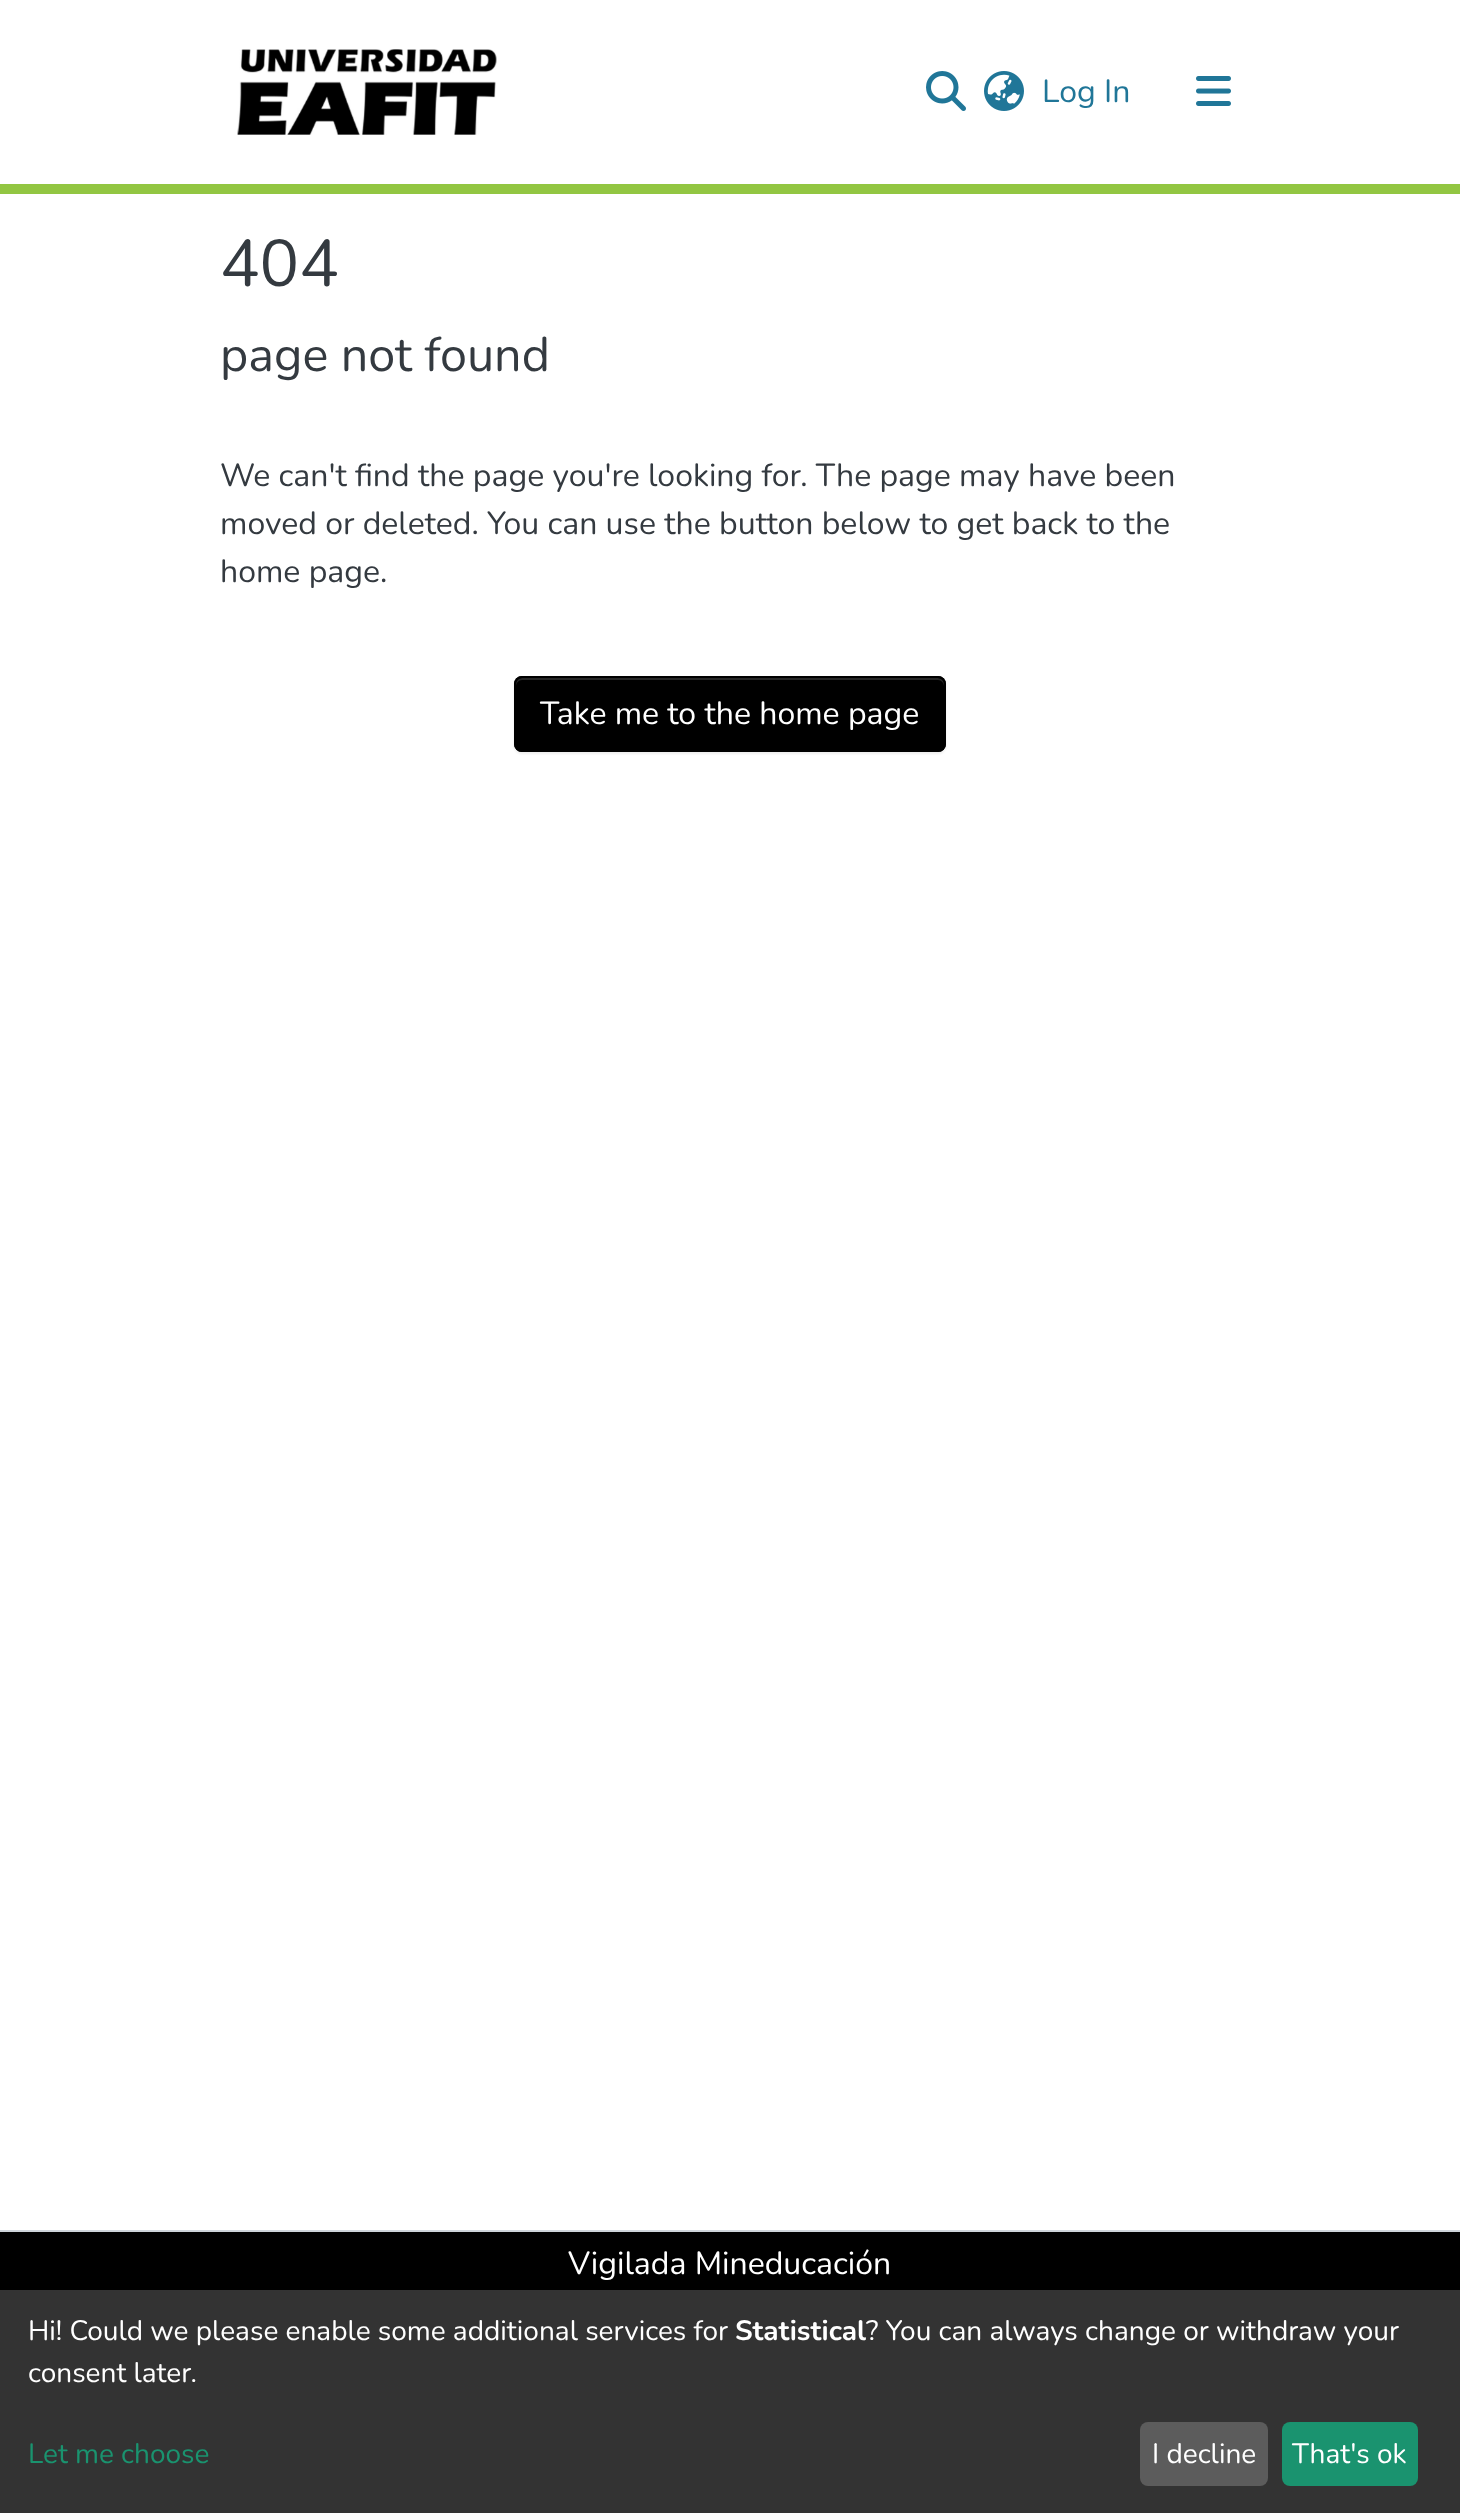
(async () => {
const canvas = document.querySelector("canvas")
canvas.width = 1460
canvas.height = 2513
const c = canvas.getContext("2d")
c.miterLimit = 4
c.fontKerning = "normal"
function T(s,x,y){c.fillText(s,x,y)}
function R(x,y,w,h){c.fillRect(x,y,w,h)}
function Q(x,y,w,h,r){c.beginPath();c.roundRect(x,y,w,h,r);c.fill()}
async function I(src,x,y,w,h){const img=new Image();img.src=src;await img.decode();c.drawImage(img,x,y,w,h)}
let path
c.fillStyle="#fff"
R(0,0,1460,2513)
c.fillStyle="#92c642"
R(0,184,1460,10)
await I("1.png",237,49,260,86)
await I("2.png",926,71,40,40)
await I("3.png",984,71,40,40)
c.font="32px Nunito"
c.fillStyle="#207698"
T("Log In",1042,102)
await I("4.png",1196,76,35,30)
c.font="66px Nunito"
c.fillStyle="#343a40"
T("404",220,286)
c.font="48.5px Nunito"
T("page not found",220,371)
c.font="32px Nunito"
T("We can't find the page you're looking for. The page may have been",220,486)
T("moved or deleted. You can use the button below to get back to the",220,534)
T("home page.",220,582)
c.fillStyle="#00000012"
c.filter="blur(1px)"
c.beginPath()
c.roundRect(514,678,432,76,8)
c.fill()
c.filter="none"
c.fillStyle="#000"
Q(514,676,432,76,8)
c.fillStyle="#262626"
path = new Path2D("M522 680h416c3 0 6 3 6 6v-2c0-3-3-6-6-6h-416c-3 0-6 3-6 6v2c0-3 3-6 6-6z")
c.fill(path)
c.beginPath()
c.roundRect(515,677,430,74,7)
c.strokeStyle="#000"
c.lineWidth=2
c.stroke()
c.fillStyle="#fff"
T("Take me to the home page",540,724)
c.fillStyle="#000"
R(0,2232,1460,58)
c.fillStyle="#ced4da"
R(0,2230,1460,2)
c.fillStyle="#fff"
T("Vigilada Mineducación",568,2274)
c.fillStyle="#333"
R(0,2290,1460,223)
c.font="28px Nunito"
c.fillStyle="#fff"
T("Hi! Could we please enable some additional services for",28,2340)
c.font="bold 28px Nunito"
T("Statistical",735,2340)
c.font="28px Nunito"
T("? You can always change or withdraw your",866,2340)
T("consent later.",28,2382)
c.fillStyle="#1a936f"
T("Let me choose",28,2463)
c.fillStyle="#5c5c5c"
Q(1140,2422,128,64,8)
c.fillStyle="#fff"
T("I decline",1152,2463)
c.fillStyle="#1a936f"
Q(1282,2422,136,64,8)
c.fillStyle="#fff"
T("That's ok",1292,2463)
})()
